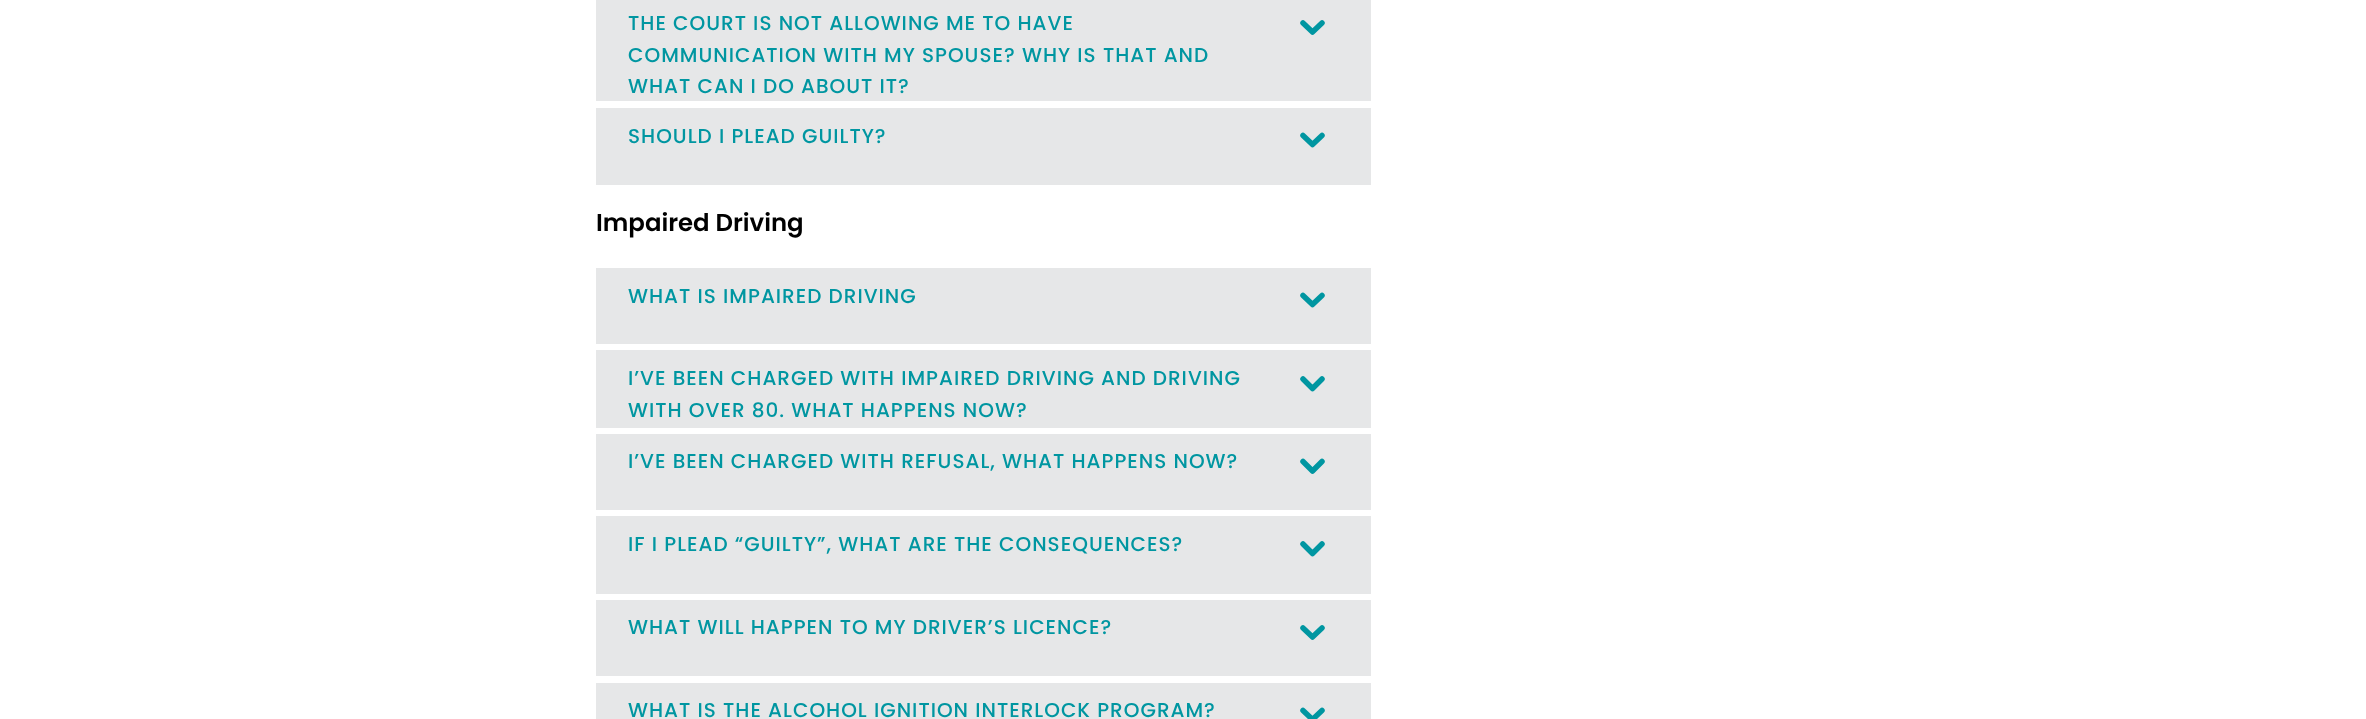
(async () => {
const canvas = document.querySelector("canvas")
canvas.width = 2366
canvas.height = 719
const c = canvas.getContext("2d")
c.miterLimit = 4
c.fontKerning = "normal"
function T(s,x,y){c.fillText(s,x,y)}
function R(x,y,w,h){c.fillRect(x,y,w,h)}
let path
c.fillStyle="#fff"
R(0,0,2366,719)
c.fillStyle="#e6e7e8"
R(596,0,775,185)
c.letterSpacing="1px"
c.font="500 20px Poppins"
c.fillStyle="#0096a1"
T("THE COURT IS NOT ALLOWING ME TO HAVE",628,30)
T("COMMUNICATION WITH MY SPOUSE? WHY IS THAT AND",628,62)
T("WHAT CAN I DO ABOUT IT?",628,93)
path = new Path2D("M1303 23l9.5 9l9.5-9")
c.strokeStyle="#0096a1"
c.lineWidth=5.5
c.lineCap="round"
c.lineJoin="round"
c.stroke(path)
c.fillStyle="#fff"
R(596,101,775,7)
c.fillStyle="#0096a1"
T("SHOULD I PLEAD GUILTY?",628,143)
path = new Path2D("M1303 135.5l9.5 9l9.5-9")
c.stroke(path)
c.letterSpacing="0px"
c.font="600 24.4px Poppins"
c.fillStyle="#000"
T("Impaired Driving",596,231)
c.fillStyle="#e6e7e8"
R(596,268,775,451)
c.letterSpacing="1px"
c.font="500 20px Poppins"
c.fillStyle="#0096a1"
T("WHAT IS IMPAIRED DRIVING",628,303)
path = new Path2D("M1303 295.5l9.5 9l9.5-9")
c.stroke(path)
c.fillStyle="#fff"
R(596,344,775,6)
c.fillStyle="#0096a1"
T("I’VE BEEN CHARGED WITH IMPAIRED DRIVING AND DRIVING",628,385)
T("WITH OVER 80. WHAT HAPPENS NOW?",628,417)
path = new Path2D("M1303 379l9.5 9.5l9.5-9.5")
c.stroke(path)
c.fillStyle="#fff"
R(596,428,775,6)
c.fillStyle="#0096a1"
T("I’VE BEEN CHARGED WITH REFUSAL, WHAT HAPPENS NOW?",628,468)
path = new Path2D("M1303 461.5l9.5 9.5l9.5-9.5")
c.stroke(path)
c.fillStyle="#fff"
R(596,510,775,6)
c.fillStyle="#0096a1"
T("IF I PLEAD “GUILTY”, WHAT ARE THE CONSEQUENCES?",628,551)
path = new Path2D("M1303 544l9.5 9.5l9.5-9.5")
c.stroke(path)
c.fillStyle="#fff"
R(596,594,775,6)
c.fillStyle="#0096a1"
T("WHAT WILL HAPPEN TO MY DRIVER’S LICENCE?",628,634)
path = new Path2D("M1303 628l9.5 9l9.5-9")
c.stroke(path)
c.fillStyle="#fff"
R(596,676,775,7)
c.fillStyle="#0096a1"
T("WHAT IS THE ALCOHOL IGNITION INTERLOCK PROGRAM?",628,717)
path = new Path2D("M1303 710.5l9.5 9l9.5-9")
c.stroke(path)
})()
